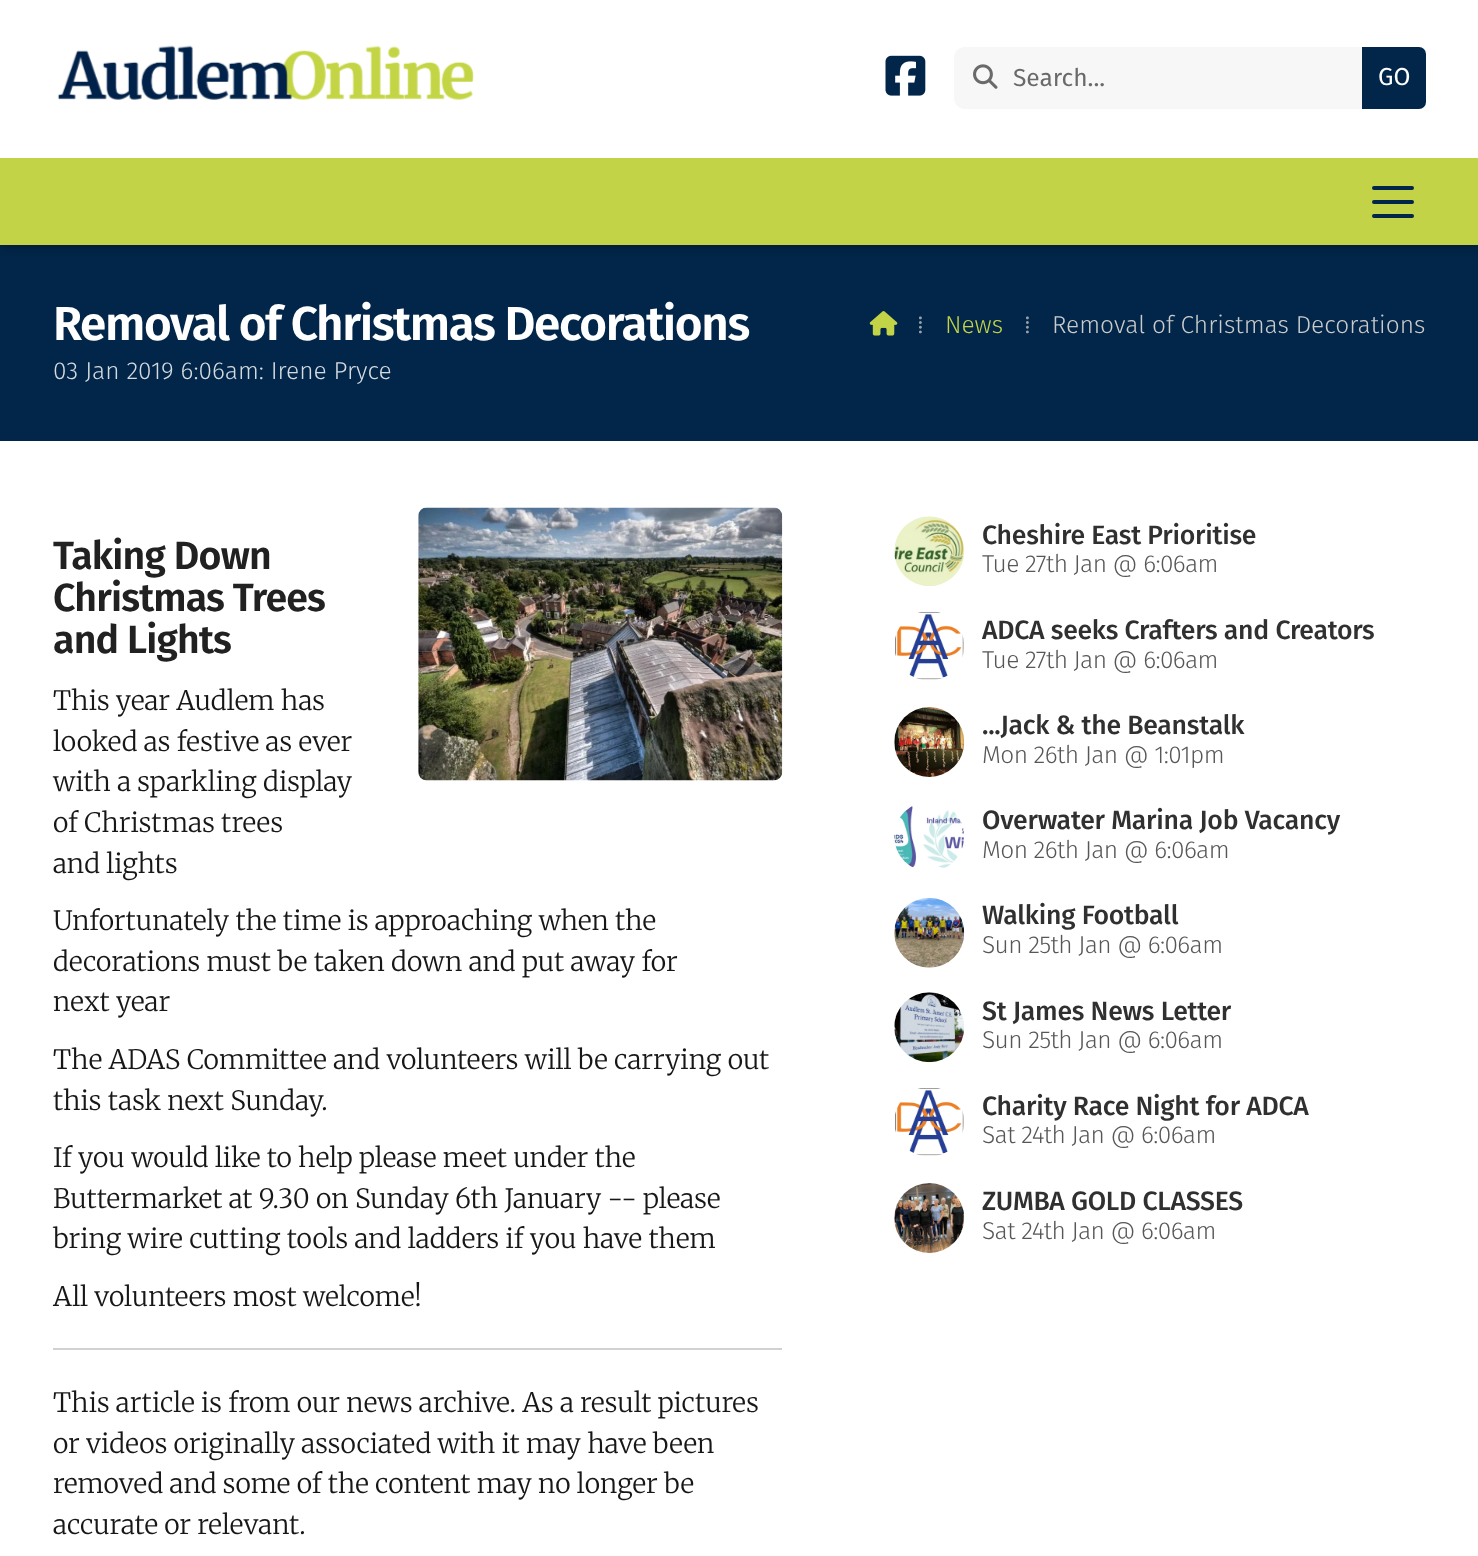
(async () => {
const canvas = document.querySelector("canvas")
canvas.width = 1478
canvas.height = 1556
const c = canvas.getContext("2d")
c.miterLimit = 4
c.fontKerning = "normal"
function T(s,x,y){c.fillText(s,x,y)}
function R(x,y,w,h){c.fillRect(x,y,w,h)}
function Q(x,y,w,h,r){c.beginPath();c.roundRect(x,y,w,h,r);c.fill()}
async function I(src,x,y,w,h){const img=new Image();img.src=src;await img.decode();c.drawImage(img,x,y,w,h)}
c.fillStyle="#fff"
R(0,0,1478,1556)
c.fillStyle="#022649"
R(0,245,1478,196)
c.fillStyle="#0000004d"
c.filter="blur(5px)"
c.beginPath()
c.rect(0,2,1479,245)
c.fill()
c.filter="none"
c.fillStyle="#fff"
R(0,0,1478,158)
await I("1.png",57,45,417,55)
await I("2.png",885,55,41,41)
c.fillStyle="#f7f7f7"
Q(954,47,472,62,11)
await I("3.png",973,64,25,25)
c.font="24.5px Fira Sans"
c.fillStyle="#6a6a6a"
T("Search...",1013,86)
c.fillStyle="#022649"
c.beginPath()
c.roundRect(1362,47,64,62,[0,7,7,0])
c.fill()
c.fillStyle="#fff"
T("GO",1378,85)
c.fillStyle="#c2d347"
R(0,158,1478,87)
c.fillStyle="#022649"
Q(1372,186,42,4,2)
Q(1372,200,42,4,2)
Q(1372,214,42,4,2)
c.letterSpacing="-1.4px"
c.font="600 47.6px Fira Sans"
c.fillStyle="#fff"
T("Removal of Christmas Decorations",53,340)
await I("4.png",869,311,29,25)
c.letterSpacing="0px"
c.font="24.5px Liberation Serif"
c.fillStyle="#99a2ab"
T("⁞",917,333)
c.font="300 24.5px Fira Sans"
c.fillStyle="#c2d347"
T("News",945,333)
c.font="24.5px Liberation Serif"
c.fillStyle="#99a2ab"
T("⁞",1024,333)
c.font="300 24.5px Fira Sans"
c.fillStyle="#cbcbcb"
T("Removal of Christmas Decorations",1052,333)
c.fillStyle="#d5dae0"
T("03 Jan 2019 6:06am: Irene Pryce",53,379)
c.letterSpacing="-0.8px"
c.font="600 39.25px Fira Sans"
c.fillStyle="#212121"
T("Taking Down",53,569)
T("Christmas Trees",53,611)
T("and Lights",53,653)
await I("5.png",418,507,365,274)
c.letterSpacing="0px"
c.font="300 26.6px Merriweather"
c.fillStyle="#171717"
T("This year Audlem has",53,710)
T("looked as festive as ever",53,751)
T("with a sparkling display",53,791)
T("of Christmas trees",53,832)
T("and lights",53,873)
T("Unfortunately the time is approaching when the",53,930)
T("decorations must be taken down and put away for",53,971)
T("next year",53,1011)
T("The ADAS Committee and volunteers will be carrying out",53,1069)
T("this task next Sunday.",53,1110)
T("If you would like to help please meet under the",53,1167)
T("Buttermarket at 9.30 on Sunday 6th January -- please",53,1208)
T("bring wire cutting tools and ladders if you have them",53,1248)
T("All volunteers most welcome!",53,1306)
c.fillStyle="#d1d1d1"
R(53,1348,729,2)
c.fillStyle="#171717"
T("This article is from our news archive. As a result pictures",53,1412)
T("or videos originally associated with it may have been",53,1453)
T("removed and some of the content may no longer be",53,1493)
T("accurate or relevant.",53,1534)
await I("6.png",894,516,71,70)
c.letterSpacing="-0.25px"
c.font="500 26.6px Fira Sans"
c.fillStyle="#303030"
T("Cheshire East Prioritise",982,544)
c.letterSpacing="-0.6px"
c.font="300 24.5px Fira Sans"
c.fillStyle="#575757"
T("Tue 27th Jan @ 6:06am",982,572)
await I("7.png",895,611,69,69)
c.letterSpacing="-0.25px"
c.font="500 26.6px Fira Sans"
c.fillStyle="#303030"
T("ADCA seeks Crafters and Creators",982,639)
c.letterSpacing="-0.6px"
c.font="300 24.5px Fira Sans"
c.fillStyle="#575757"
T("Tue 27th Jan @ 6:06am",982,668)
await I("8.png",894,707,71,70)
c.letterSpacing="-0.25px"
c.font="500 26.6px Fira Sans"
c.fillStyle="#303030"
T("...Jack & the Beanstalk",982,734)
c.letterSpacing="-0.6px"
c.font="300 24.5px Fira Sans"
c.fillStyle="#575757"
T("Mon 26th Jan @ 1:01pm",982,763)
await I("9.png",894,806,70,62)
c.letterSpacing="-0.25px"
c.font="500 26.6px Fira Sans"
c.fillStyle="#303030"
T("Overwater Marina Job Vacancy",982,829)
c.letterSpacing="-0.6px"
c.font="300 24.5px Fira Sans"
c.fillStyle="#575757"
T("Mon 26th Jan @ 6:06am",982,858)
await I("10.png",894,897,71,71)
c.letterSpacing="-0.25px"
c.font="500 26.6px Fira Sans"
c.fillStyle="#303030"
T("Walking Football",982,924)
c.letterSpacing="-0.6px"
c.font="300 24.5px Fira Sans"
c.fillStyle="#575757"
T("Sun 25th Jan @ 6:06am",982,953)
await I("11.png",894,992,70,71)
c.letterSpacing="-0.25px"
c.font="500 26.6px Fira Sans"
c.fillStyle="#303030"
T("St James News Letter",982,1020)
c.letterSpacing="-0.6px"
c.font="300 24.5px Fira Sans"
c.fillStyle="#575757"
T("Sun 25th Jan @ 6:06am",982,1048)
await I("12.png",895,1088,69,68)
c.letterSpacing="-0.25px"
c.font="500 26.6px Fira Sans"
c.fillStyle="#303030"
T("Charity Race Night for ADCA",982,1115)
c.letterSpacing="-0.6px"
c.font="300 24.5px Fira Sans"
c.fillStyle="#575757"
T("Sat 24th Jan @ 6:06am",982,1143)
await I("13.png",894,1183,71,70)
c.letterSpacing="-0.25px"
c.font="500 26.6px Fira Sans"
c.fillStyle="#303030"
T("ZUMBA GOLD CLASSES",982,1210)
c.letterSpacing="-0.6px"
c.font="300 24.5px Fira Sans"
c.fillStyle="#575757"
T("Sat 24th Jan @ 6:06am",982,1239)
})()
